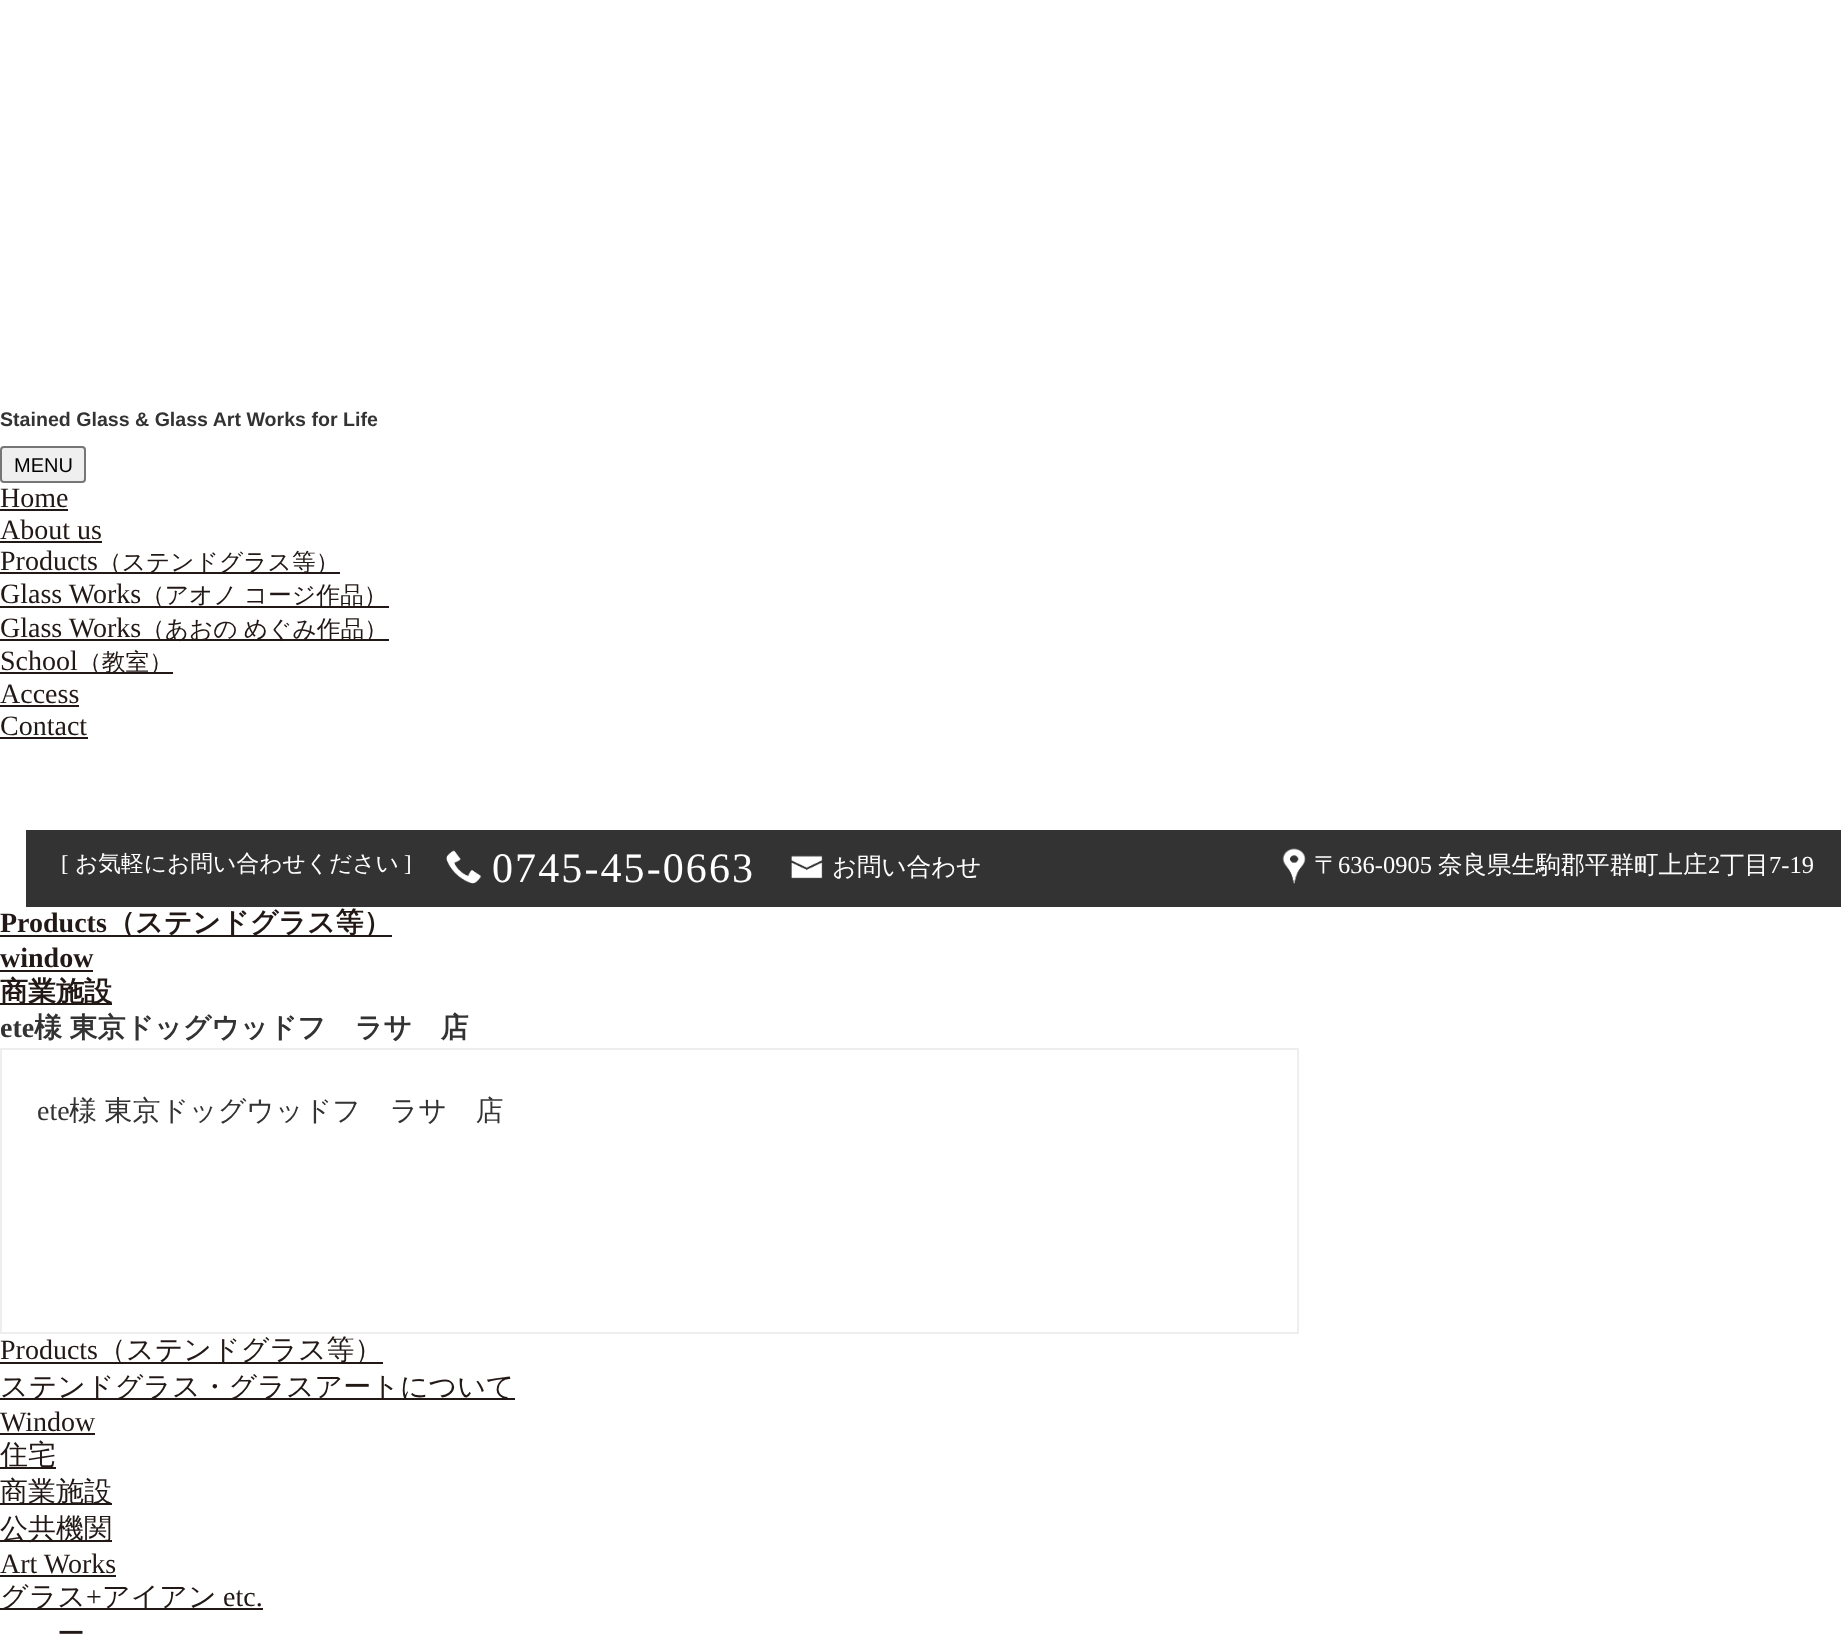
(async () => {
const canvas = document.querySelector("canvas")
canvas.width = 1841
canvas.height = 1636
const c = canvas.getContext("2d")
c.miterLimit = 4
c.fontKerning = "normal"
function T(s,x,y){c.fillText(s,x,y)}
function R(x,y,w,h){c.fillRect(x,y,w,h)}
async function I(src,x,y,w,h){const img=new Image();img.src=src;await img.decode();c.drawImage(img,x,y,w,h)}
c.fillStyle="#fff"
R(0,0,1841,1636)
c.font="bold 19.6px Liberation Sans"
c.fillStyle="#333"
T("Stained Glass & Glass Art Works for Life",0,426)
c.fillStyle="#efefef"
c.beginPath()
c.roundRect(1,447,84,35,3)
c.fill()
c.strokeStyle="#767676"
c.lineWidth=2
c.stroke()
c.font="20px Liberation Sans"
c.fillStyle="#000"
T("MENU",14,472)
c.font="28px Liberation Serif"
c.fillStyle="#221815"
T("Home",0,507)
R(0,509,68,2)
T("About us",0,539)
R(0,541,102,2)
T("Products",0,570)
R(0,572,340,2)
c.font="500 23.75px WenQuanYi Zen Hei"
T("（ステンドグラス等）",98,570)
c.font="28px Liberation Serif"
T("Glass Works",0,603)
R(0,606,389,2)
c.wordSpacing="-1px"
c.font="500 23.75px WenQuanYi Zen Hei"
T("（アオノ コージ作品）",141,603)
c.wordSpacing="0px"
c.font="28px Liberation Serif"
T("Glass Works",0,637)
R(0,639,389,2)
c.wordSpacing="-1px"
c.font="500 23.75px WenQuanYi Zen Hei"
T("（あおの めぐみ作品）",141,637)
c.wordSpacing="0px"
c.font="28px Liberation Serif"
T("School",0,670)
R(0,672,173,2)
c.font="500 23.75px WenQuanYi Zen Hei"
T("（教室）",78,670)
c.font="28px Liberation Serif"
T("Access",0,703)
R(0,705,79,2)
T("Contact",0,735)
R(0,737,88,2)
c.fillStyle="#333"
R(26,830,1815,77)
c.font="22.75px Liberation Serif"
c.fillStyle="#fff"
T("[",61,871)
c.font="500 22.75px WenQuanYi Zen Hei"
T("お気軽にお問い合わせください",75,871)
c.font="22.75px Liberation Serif"
T("]",404,871)
await I("1.png",446,850,36,34)
c.letterSpacing="2.1px"
c.font="42px Liberation Serif"
T("0745-45-0663",492,882)
await I("2.png",791,855,32,24)
c.letterSpacing="0px"
c.font="500 24.5px WenQuanYi Zen Hei"
T("お問い合わせ",832,875)
await I("3.png",1282,848,24,36)
T("〒",1314,873)
c.font="24.5px Liberation Serif"
T("636-0905",1338,873)
c.font="500 24.5px WenQuanYi Zen Hei"
T("奈良県生駒郡平群町上庄",1438,873)
c.font="24.5px Liberation Serif"
T("2",1708,873)
c.font="500 24.5px WenQuanYi Zen Hei"
T("丁目",1720,873)
c.font="24.5px Liberation Serif"
T("7-19",1769,873)
c.font="bold 28px Liberation Serif"
c.fillStyle="#221815"
T("Products",0,932)
R(0,935,392,2)
c.font="bold 28px WenQuanYi Zen Hei"
T("（ステンドグラス等）",107,932)
c.font="bold 28px Liberation Serif"
T("window",0,967)
R(0,970,93,2)
R(0,1003,112,2)
c.font="bold 28px WenQuanYi Zen Hei"
T("商業施設",0,1001)
c.font="bold 28px Liberation Serif"
c.fillStyle="#333"
T("ete",0,1037)
c.wordSpacing="-1px"
c.font="bold 28px WenQuanYi Zen Hei"
T("様 東京ドッグウッドプラザ店",34,1037)
c.strokeStyle="#eee"
c.strokeRect(1,1049,1297,284)
c.wordSpacing="0px"
c.font="28px Liberation Serif"
T("ete",37,1120)
c.wordSpacing="-1px"
c.font="500 28px WenQuanYi Zen Hei"
T("様 東京ドッグウッドプラザ店",69,1120)
c.wordSpacing="0px"
c.font="28px Liberation Serif"
c.fillStyle="#221815"
T("Products",0,1359)
R(0,1362,383,2)
c.font="500 28px WenQuanYi Zen Hei"
T("（ステンドグラス等）",98,1359)
R(0,1398,515,2)
T("ステンドグラス・グラスアートについて",0,1396)
c.font="28px Liberation Serif"
T("Window",0,1431)
R(0,1433,95,2)
R(0,1467,56,2)
c.font="500 28px WenQuanYi Zen Hei"
T("住宅",0,1464)
R(0,1503,112,2)
T("商業施設",0,1501)
R(0,1540,112,2)
T("公共機関",0,1538)
c.font="28px Liberation Serif"
T("Art Works",0,1573)
R(0,1575,116,2)
R(0,1608,263,2)
c.font="500 28px WenQuanYi Zen Hei"
T("グラス",0,1606)
c.font="28px Liberation Serif"
T("+",86,1606)
c.font="500 28px WenQuanYi Zen Hei"
T("アイアン",102,1606)
c.font="28px Liberation Serif"
T("etc.",223,1606)
c.wordSpacing="-1px"
c.font="500 28px WenQuanYi Zen Hei"
T("ー",57,1643)
})()
